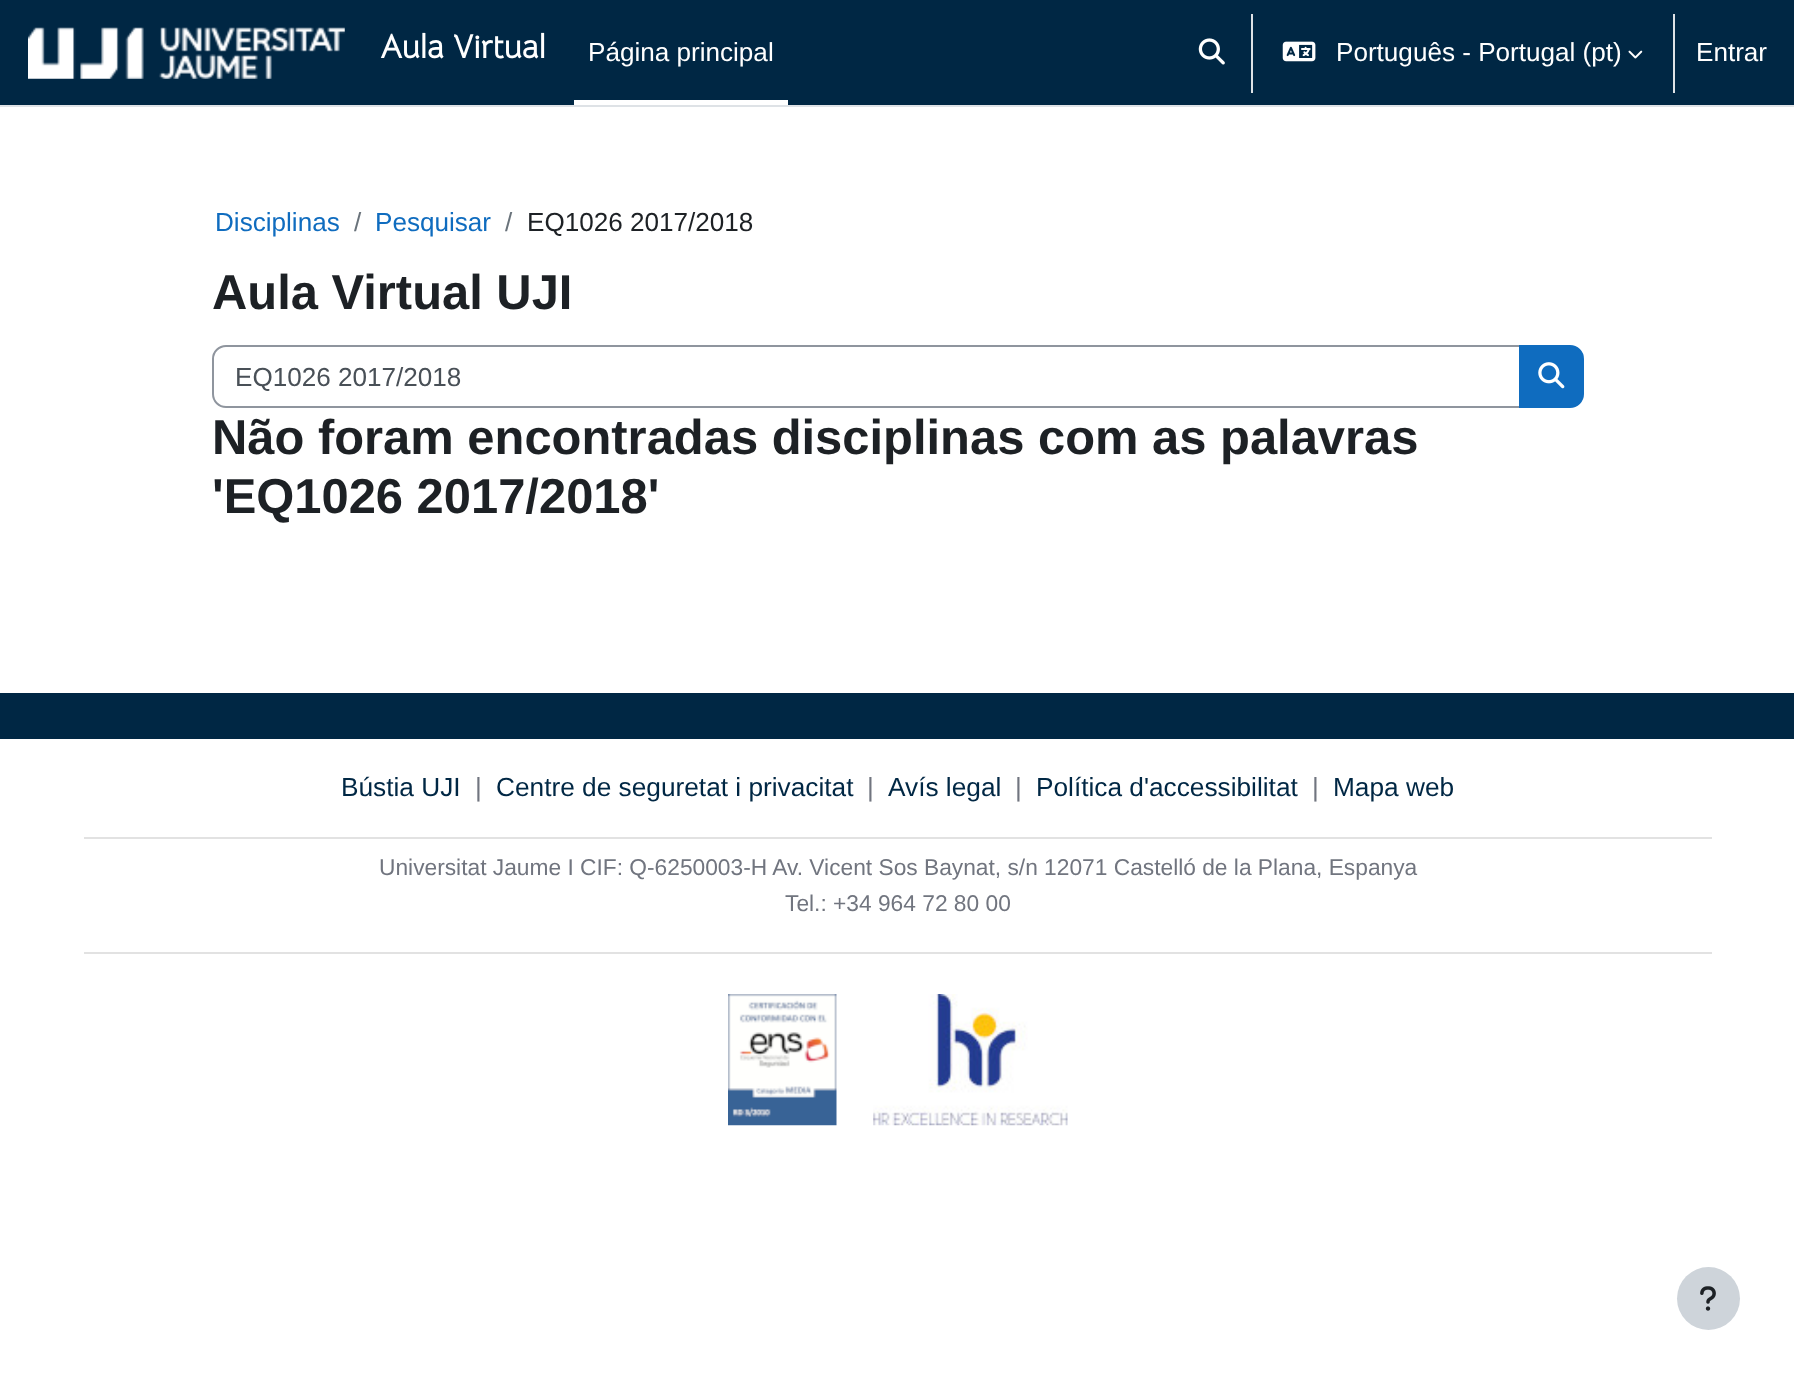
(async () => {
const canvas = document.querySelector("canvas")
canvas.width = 1794
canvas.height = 1386
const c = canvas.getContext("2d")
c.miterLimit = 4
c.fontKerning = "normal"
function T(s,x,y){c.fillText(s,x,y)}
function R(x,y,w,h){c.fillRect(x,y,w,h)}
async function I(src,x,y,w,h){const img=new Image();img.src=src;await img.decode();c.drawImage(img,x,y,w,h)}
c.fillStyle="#fff"
R(0,0,1794,1386)
c.fillStyle="#002744"
R(0,0,1794,105)
c.fillStyle="#dee2e6"
R(0,105,1794,2)
await I("1.png",28,27,317,52)
c.font="bold 33.25px Bellota Text"
c.fillStyle="#fff"
T("Aula Virtual",380,58)
R(574,100,214,5)
c.font="26.1px Liberation Sans"
T("Página principal",588,61)
await I("2.png",1198,38,27,27)
c.fillStyle="#dee2e6"
R(1251,14,2,79)
await I("3.png",1282,41,34,21)
c.fillStyle="#fff"
T("Português - Portugal (pt)",1336,61)
await I("4.png",1628,50,15,9)
c.fillStyle="#dee2e6"
R(1673,14,2,79)
c.fillStyle="#fff"
T("Entrar",1696,61)
c.fillStyle="#0f6cbf"
T("Disciplinas",215,231)
c.fillStyle="#6a737b"
T("/",354,231)
c.fillStyle="#0f6cbf"
T("Pesquisar",375,231)
c.fillStyle="#6a737b"
T("/",505,231)
c.fillStyle="#1d2125"
T("EQ1026 2017/2018",527,231)
c.font="bold 48.9px Liberation Sans"
T("Aula Virtual UJI",212,309)
c.beginPath()
c.roundRect(213,346,1307,61,[13,0,0,13])
c.strokeStyle="#8f959e"
c.lineWidth=2
c.stroke()
c.font="26.1px Liberation Sans"
c.fillStyle="#495057"
T("EQ1026 2017/2018",235,386)
c.fillStyle="#0f6cbf"
c.beginPath()
c.roundRect(1520,346,63,61,[0,13,13,0])
c.fill()
c.strokeStyle="#0f6cbf"
c.stroke()
await I("5.png",1538,362,27,27)
c.font="bold 48.9px Liberation Sans"
c.fillStyle="#1d2125"
T("Não foram encontradas disciplinas com as palavras",212,454)
T("'EQ1026 2017/2018'",212,513)
c.fillStyle="#002744"
R(0,693,1794,46)
c.font="26.25px Liberation Sans"
T("Bústia UJI",341,796)
c.fillStyle="#71757f"
T("|",475,796)
c.fillStyle="#002744"
T("Centre de seguretat i privacitat",496,796)
c.fillStyle="#71757f"
T("|",867,796)
c.fillStyle="#002744"
T("Avís legal",888,796)
c.fillStyle="#71757f"
T("|",1015,796)
c.fillStyle="#002744"
T("Política d'accessibilitat",1036,796)
c.fillStyle="#71757f"
T("|",1312,796)
c.fillStyle="#002744"
T("Mapa web",1333,796)
c.fillStyle="#e2e2e2"
R(84,837,1628,2)
c.font="22.75px Liberation Sans"
c.fillStyle="#71757f"
T("Universitat Jaume I CIF: Q-6250003-H Av. Vicent Sos Baynat, s/n 12071 Castelló de la Plana, Espanya",379,875)
T("Tel.: +34 964 72 80 00",785,911)
c.fillStyle="#e2e2e2"
R(84,952,1628,2)
await I("6.png",728,994,109,132)
await I("7.png",873,994,195,132)
c.fillStyle="#ced4da"
c.beginPath()
c.arc(1708.5,1298.5,31.5,0,7)
c.fill()
await I("8.png",1700,1286,16,25)
})()
